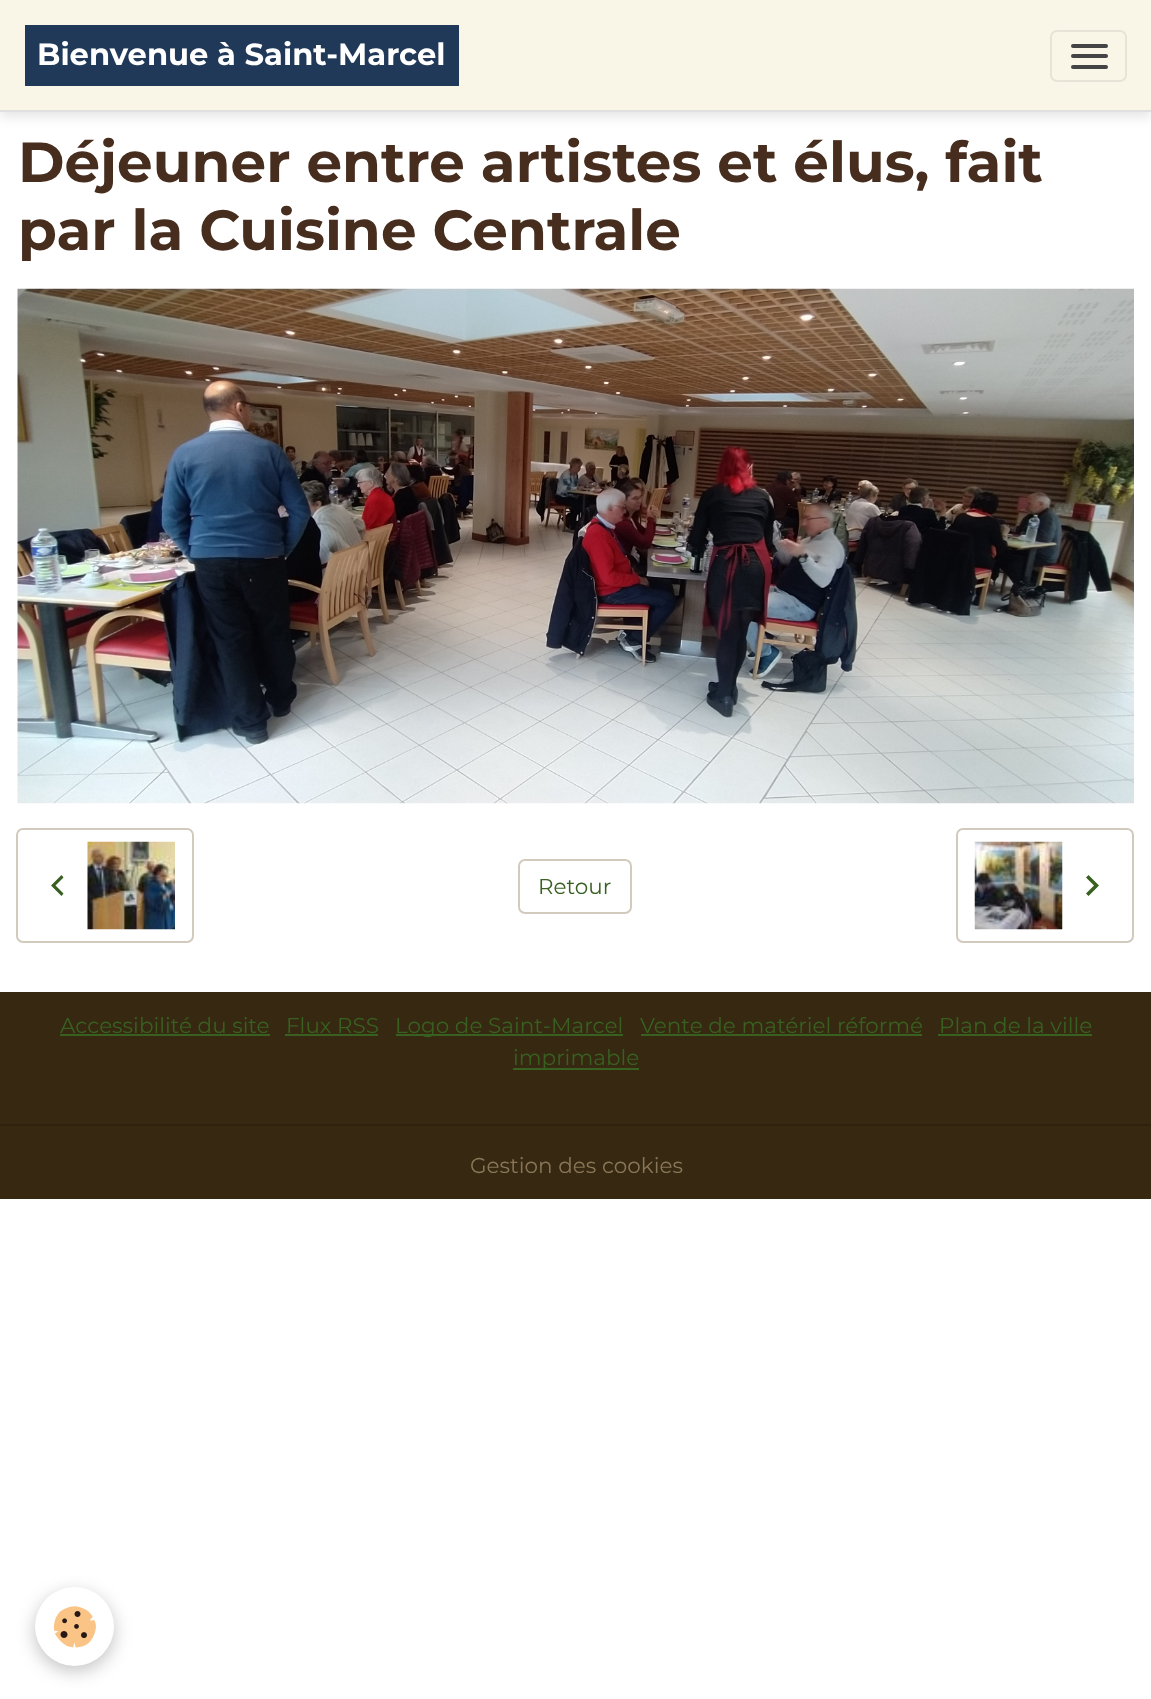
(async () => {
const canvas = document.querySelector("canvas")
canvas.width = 1151
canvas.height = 1699
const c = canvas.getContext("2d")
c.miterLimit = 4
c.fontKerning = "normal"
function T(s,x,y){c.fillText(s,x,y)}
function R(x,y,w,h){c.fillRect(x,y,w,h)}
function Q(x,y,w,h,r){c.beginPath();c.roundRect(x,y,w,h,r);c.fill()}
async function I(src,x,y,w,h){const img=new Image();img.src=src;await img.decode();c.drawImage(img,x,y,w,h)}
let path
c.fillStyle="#fff"
R(0,0,1151,1699)
c.fillStyle="#0000001a"
c.filter="blur(6px)"
c.beginPath()
c.rect(0,5,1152,112)
c.fill()
c.filter="none"
c.fillStyle="#f9f6e7"
R(0,0,1151,110)
c.fillStyle="#e0e0e0"
R(0,110,1151,2)
c.fillStyle="#213958"
R(25,25,434,61)
c.font="bold 30.6px Montserrat"
c.fillStyle="#fff"
T("Bienvenue à Saint-Marcel",37,65)
c.beginPath()
c.roundRect(1051,31,75,50,6)
c.strokeStyle="#e7e4d7"
c.lineWidth=2
c.stroke()
c.fillStyle="#444"
Q(1071,44,37,4,2)
Q(1071,54,37,4,2)
Q(1071,65,37,4,2)
c.font="bold 56.4px Montserrat"
c.fillStyle="#462d1e"
T("Déjeuner entre artistes et élus, fait",18,182)
T("par la Cuisine Centrale",18,250)
await I("1.png",17,288,1117,516)
c.beginPath()
c.roundRect(17,829,176,113,6)
c.strokeStyle="#d3cabe"
c.stroke()
c.fillStyle="#386021"
path = new Path2D("M63.5 877.5l-8 8l8 8l-2 2.5l-10.5-10.5l10.5-10.5z")
c.fill(path)
await I("2.png",87,841,88,89)
c.beginPath()
c.roundRect(519,860,112,53,6)
c.stroke()
c.font="21.5px Montserrat"
T("Retour",538,894)
c.beginPath()
c.roundRect(957,829,176,113,6)
c.stroke()
await I("3.png",974,841,89,89)
path = new Path2D("M1088.5 875l10.5 10.5l-10.5 10.5l-2.5-2.5l8-8l-8-8z")
c.fill(path)
c.fillStyle="#362811"
R(0,992,1151,207)
c.fillStyle="#386021"
T("Accessibilité du site",60,1033)
R(60,1034,210,2)
T("Flux RSS",286,1033)
R(285,1034,93,2)
R(396,1034,227,2)
T("Logo de Saint-Marcel",395,1033)
T("Vente de matériel réformé",640,1033)
R(641,1034,281,2)
T("Plan de la ville",939,1033)
R(938,1034,154,2)
R(513,1068,126,2)
T("imprimable",513,1065)
c.fillStyle="#2e220e"
R(0,1124,1151,2)
c.fillStyle="#897658"
T("Gestion des cookies",470,1173)
c.fillStyle="#0000003d"
c.filter="blur(9px)"
c.beginPath()
c.roundRect(35,1593,79,78,39)
c.fill()
c.filter="none"
c.fillStyle="#fff"
c.beginPath()
c.arc(74.5,1626.5,39.5,0,7)
c.fill()
await I("4.png",53,1606,43,42)
})()
